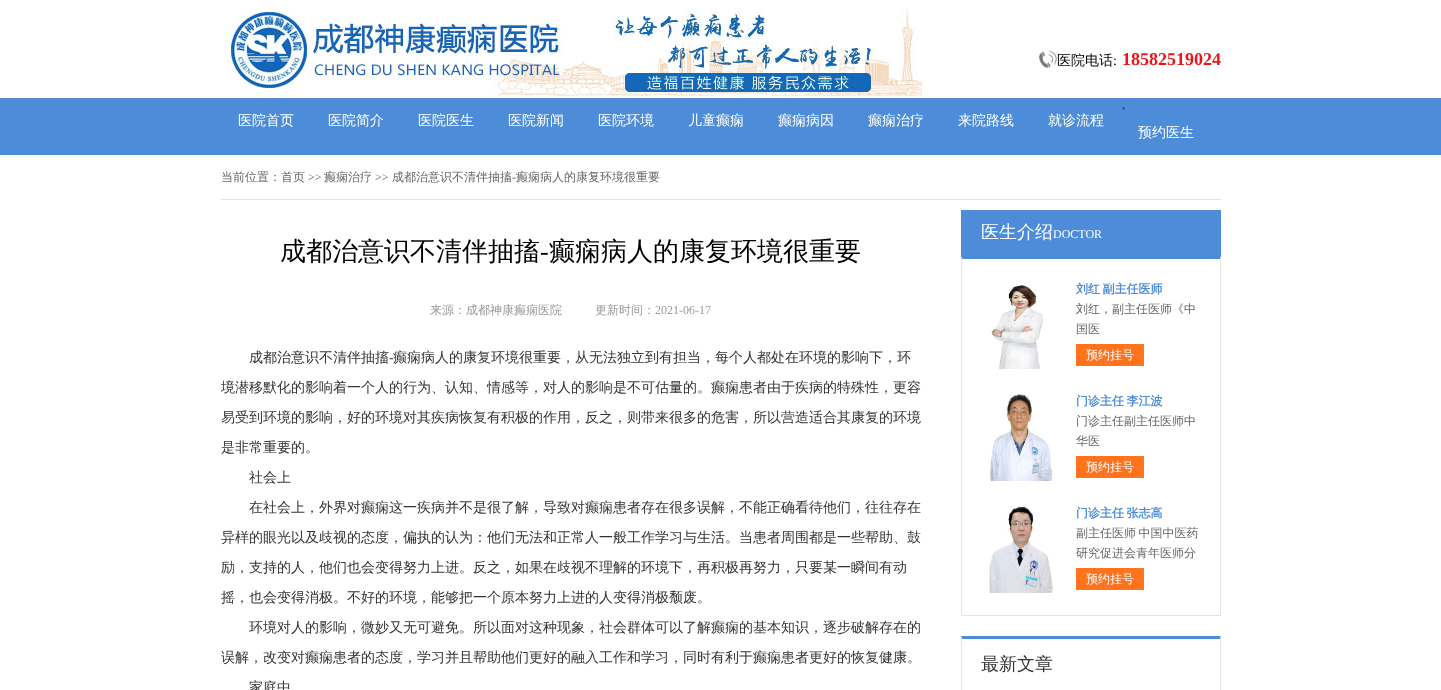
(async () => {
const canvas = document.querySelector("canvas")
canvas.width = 1441
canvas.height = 690
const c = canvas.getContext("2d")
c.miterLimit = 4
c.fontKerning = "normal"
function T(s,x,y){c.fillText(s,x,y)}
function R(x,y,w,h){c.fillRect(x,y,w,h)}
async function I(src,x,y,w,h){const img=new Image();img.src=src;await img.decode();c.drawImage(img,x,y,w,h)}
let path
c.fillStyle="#fff"
R(0,0,1441,690)
await I("1.png",229,8,696,88)
await I("2.png",1039,50,18,18)
c.font="500 14px WenQuanYi Zen Hei"
c.fillStyle="#000"
T("医院电话",1057,65)
c.font="14px Liberation Serif"
T(":",1113,65)
c.font="bold 18px Liberation Serif"
c.fillStyle="#e8171a"
T("18582519024",1122,65)
c.fillStyle="#4c8cd9"
R(0,98,1441,57)
c.font="500 12px WenQuanYi Zen Hei"
c.fillStyle="#000"
T("、",1121,108)
c.font="500 14px WenQuanYi Zen Hei"
c.fillStyle="#fff"
T("医院首页",238,125)
T("医院简介",328,125)
T("医院医生",418,125)
T("医院新闻",508,125)
T("医院环境",598,125)
T("儿童癫痫",688,125)
T("癫痫病因",778,125)
T("癫痫治疗",868,125)
T("来院路线",958,125)
T("就诊流程",1048,125)
T("预约医生",1138,137)
c.fillStyle="#e4e4e4"
R(221,199,1000,1)
c.font="500 12px WenQuanYi Zen Hei"
c.fillStyle="#666"
T("当前位置：首页",221,181)
c.font="12px Liberation Serif"
T(">>",308,181)
c.font="500 12px WenQuanYi Zen Hei"
T("癫痫治疗",324,181)
c.font="12px Liberation Serif"
T(">>",375,181)
c.font="500 12px WenQuanYi Zen Hei"
T("成都治意识不清伴抽搐",392,181)
c.font="12px Liberation Serif"
T("-",512,181)
c.font="500 12px WenQuanYi Zen Hei"
T("癫痫病人的康复环境很重要",516,181)
c.font="500 26px WenQuanYi Zen Hei"
c.fillStyle="#000"
T("成都治意识不清伴抽搐",280,260)
c.font="26px Liberation Serif"
T("-",540,260)
c.font="500 26px WenQuanYi Zen Hei"
T("癫痫病人的康复环境很重要",549,260)
c.font="500 12px WenQuanYi Zen Hei"
c.fillStyle="#999"
T("来源：成都神康癫痫医院",430,314)
T("更新时间：",595,314)
c.font="12px Liberation Serif"
T("2021-06-17",655,314)
c.font="500 14px WenQuanYi Zen Hei"
c.fillStyle="#333"
T("成都治意识不清伴抽搐",249,362)
c.font="14px Liberation Serif"
T("-",389,362)
c.font="500 14px WenQuanYi Zen Hei"
T("癫痫病人的康复环境很重要，从无法独立到有担当，每个人都处在环境的影响下，环",393,362)
c.save()
c.beginPath()
c.rect(221,210,1000,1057)
c.clip()
T("境潜移默化的影响着一个人的行为、认知、情感等，对人的影响是不可估量的。癫痫患者由于疾病的特殊性，更容",221,392)
c.restore()
T("易受到环境的影响，好的环境对其疾病恢复有积极的作用，反之，则带来很多的危害，所以营造适合其康复的环境",221,422)
T("是非常重要的。",221,452)
T("社会上",249,482)
T("在社会上，外界对癫痫这一疾病并不是很了解，导致对癫痫患者存在很多误解，不能正确看待他们，往往存在",249,512)
T("异样的眼光以及歧视的态度，偏执的认为：他们无法和正常人一般工作学习与生活。当患者周围都是一些帮助、鼓",221,542)
T("励，支持的人，他们也会变得努力上进。反之，如果在歧视不理解的环境下，再积极再努力，只要某一瞬间有动",221,572)
T("摇，也会变得消极。不好的环境，能够把一个原本努力上进的人变得消极颓废。",221,602)
T("环境对人的影响，微妙又无可避免。所以面对这种现象，社会群体可以了解癫痫的基本知识，逐步破解存在的",249,632)
T("误解，改变对癫痫患者的态度，学习并且帮助他们更好的融入工作和学习，同时有利于癫痫患者更好的恢复健康。",221,662)
T("家庭中",249,692)
c.fillStyle="#4c8cd9"
R(961,210,260,47)
c.font="500 18px WenQuanYi Zen Hei"
c.fillStyle="#fff"
T("医生介绍",981,238)
c.font="12px Liberation Serif"
T("DOCTOR",1053,238)
c.fillStyle="#4c8cd9"
path = new Path2D("M961 256h260l-1 3h-258z")
c.fill(path)
c.fillStyle="#e4e4e4"
path = new Path2D("M1221 256v360l-1-1v-356z")
c.fill(path)
R(961,615,260,1)
path = new Path2D("M961 616v-360l1 3v356z")
c.fill(path)
await I("3.png",991,285,52,84)
c.wordSpacing="-1px"
c.font="bold 12px WenQuanYi Zen Hei"
c.fillStyle="#4c8cd9"
T("刘红 副主任医师",1076,293)
c.wordSpacing="0px"
c.font="500 12px WenQuanYi Zen Hei"
c.fillStyle="#666"
T("刘红，副主任医师《中",1076,313)
T("国医",1076,333)
c.fillStyle="#ff731e"
R(1076,344,68,22)
c.fillStyle="#fff"
T("预约挂号",1086,359)
await I("4.png",990,394,63,87)
c.wordSpacing="-1px"
c.font="bold 12px WenQuanYi Zen Hei"
c.fillStyle="#4c8cd9"
T("门诊主任 李江波",1076,405)
c.wordSpacing="0px"
c.font="500 12px WenQuanYi Zen Hei"
c.fillStyle="#666"
T("门诊主任副主任医师中",1076,425)
T("华医",1076,445)
c.fillStyle="#ff731e"
R(1076,456,68,22)
c.fillStyle="#fff"
T("预约挂号",1086,471)
await I("5.png",989,506,64,87)
c.wordSpacing="-1px"
c.font="bold 12px WenQuanYi Zen Hei"
c.fillStyle="#4c8cd9"
T("门诊主任 张志高",1076,517)
c.font="500 12px WenQuanYi Zen Hei"
c.fillStyle="#666"
T("副主任医师 中国中医药",1076,537)
c.wordSpacing="0px"
T("研究促进会青年医师分",1076,557)
c.fillStyle="#ff731e"
R(1076,568,68,22)
c.fillStyle="#fff"
T("预约挂号",1086,583)
c.fillStyle="#4c8cd9"
path = new Path2D("M961 636h260l-1 3h-258z")
c.fill(path)
c.fillStyle="#e4e4e4"
path = new Path2D("M1221 636v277l-1-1v-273z")
c.fill(path)
path = new Path2D("M961 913v-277l1 3v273z")
c.fill(path)
c.font="500 18px WenQuanYi Zen Hei"
c.fillStyle="#333"
T("最新文章",981,670)
})()
